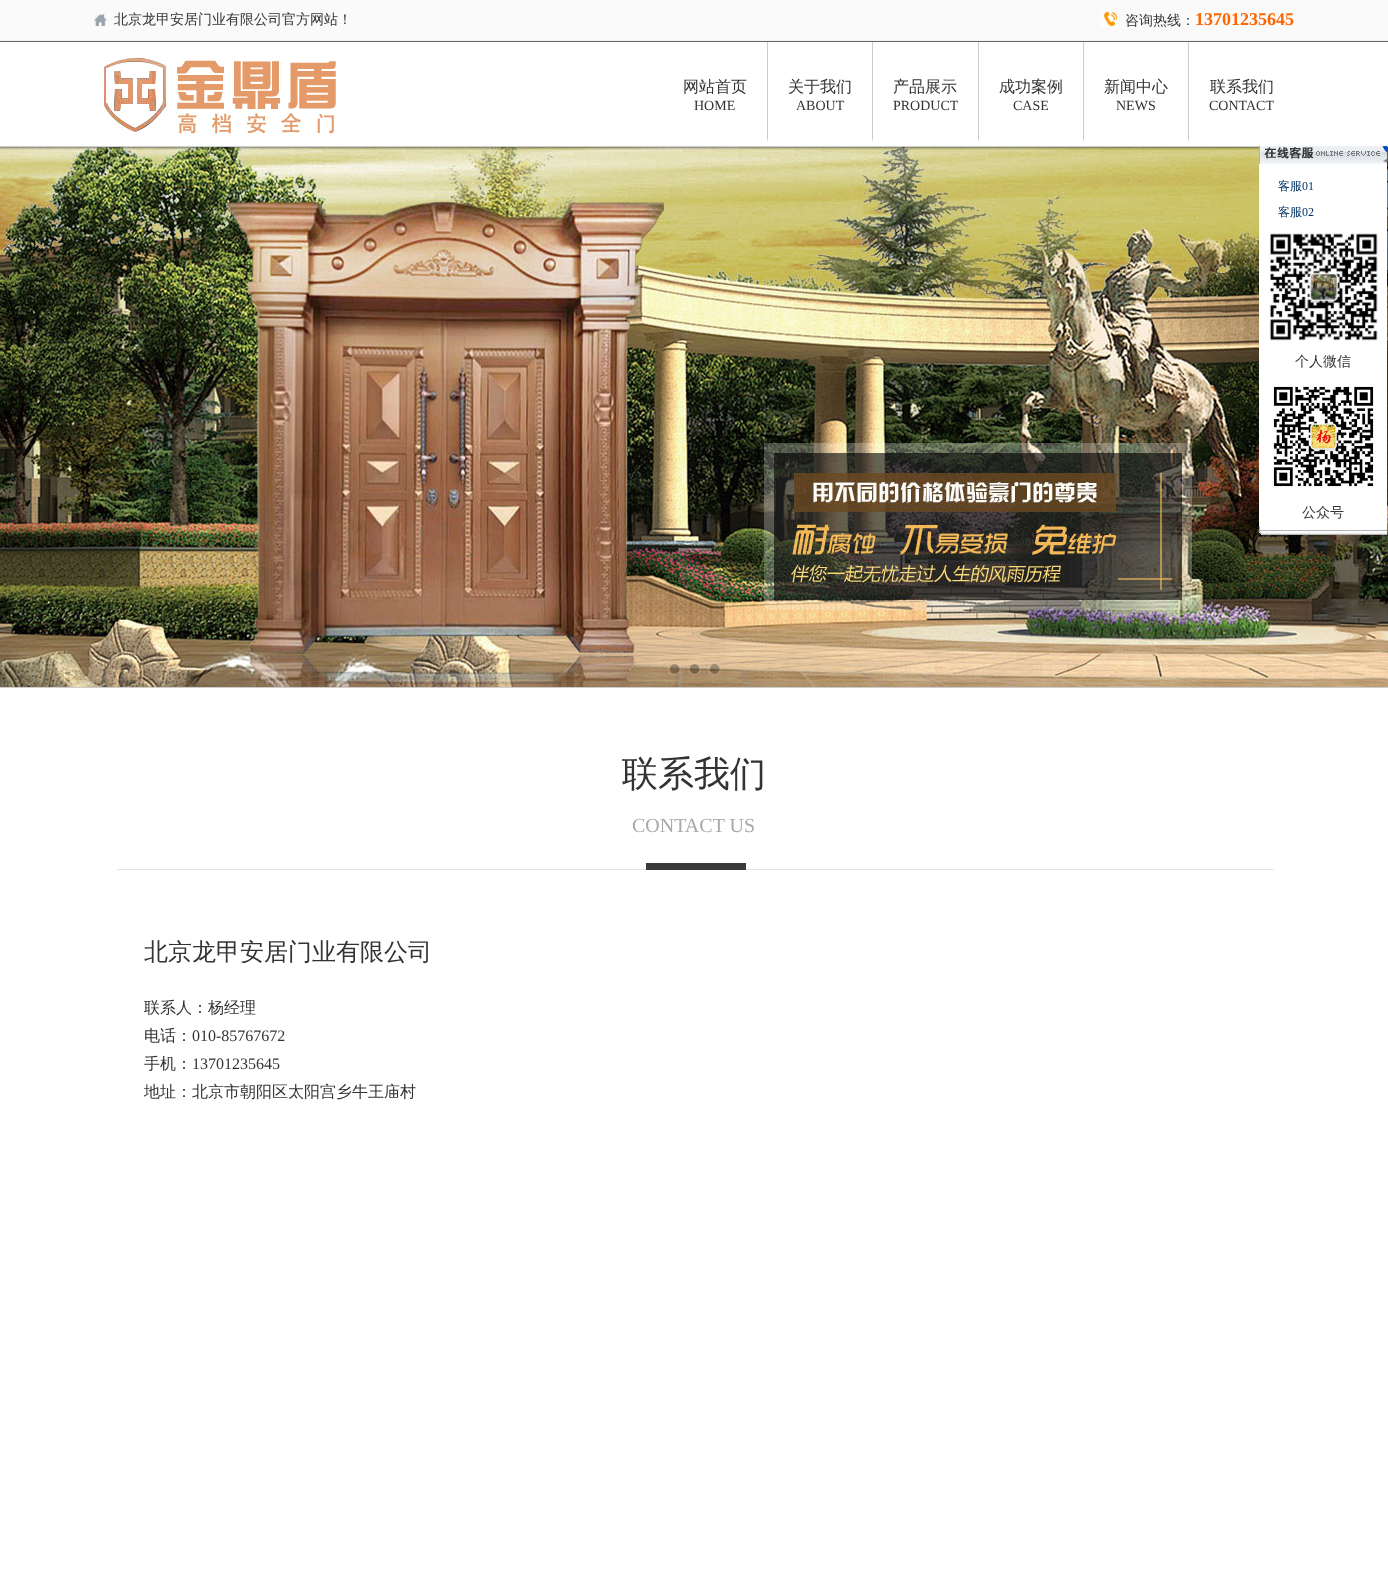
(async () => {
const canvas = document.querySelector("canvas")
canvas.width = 1388
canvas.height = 1596
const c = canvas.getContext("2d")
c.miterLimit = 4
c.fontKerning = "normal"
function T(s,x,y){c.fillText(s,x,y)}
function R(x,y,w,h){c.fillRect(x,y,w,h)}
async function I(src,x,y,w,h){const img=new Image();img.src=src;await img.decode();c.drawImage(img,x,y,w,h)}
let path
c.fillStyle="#fff"
R(0,0,1388,1596)
c.fillStyle="#fafafa"
R(0,0,1388,40)
c.fillStyle="#f2f2f2"
R(0,40,1388,1)
await I("1.png",94,14,14,12)
c.font="500 14px WenQuanYi Zen Hei"
c.fillStyle="#333"
T("北京龙甲安居门业有限公司官方网站！",114,24)
await I("2.png",1101,9,17,18)
T("咨询热线：",1125,25)
c.font="bold 18px Liberation Serif"
c.fillStyle="#f60"
T("13701235645",1195,25)
c.fillStyle="#666"
R(0,41,1388,1)
await I("3.png",104,57,232,77)
c.font="500 16px WenQuanYi Zen Hei"
c.fillStyle="#333"
T("网站首页",683,92)
c.font="14px Liberation Serif"
T("HOME",694,110)
c.fillStyle="#ccc"
path = new Path2D("M767 142v-100h1v97z")
c.fill(path)
c.font="500 16px WenQuanYi Zen Hei"
c.fillStyle="#333"
T("关于我们",788,92)
c.font="14px Liberation Serif"
T("ABOUT",796,110)
c.fillStyle="#ccc"
path = new Path2D("M872 142v-100h1v97z")
c.fill(path)
c.font="500 16px WenQuanYi Zen Hei"
c.fillStyle="#333"
T("产品展示",893,92)
c.font="14px Liberation Serif"
T("PRODUCT",893,110)
c.fillStyle="#ccc"
path = new Path2D("M978 142v-100h1v97z")
c.fill(path)
c.font="500 16px WenQuanYi Zen Hei"
c.fillStyle="#333"
T("成功案例",999,92)
c.font="14px Liberation Serif"
T("CASE",1013,110)
c.fillStyle="#ccc"
path = new Path2D("M1083 142v-100h1v97z")
c.fill(path)
c.font="500 16px WenQuanYi Zen Hei"
c.fillStyle="#333"
T("新闻中心",1104,92)
c.font="14px Liberation Serif"
T("NEWS",1116,110)
c.fillStyle="#ccc"
path = new Path2D("M1188 142v-100h1v97z")
c.fill(path)
c.font="500 16px WenQuanYi Zen Hei"
c.fillStyle="#333"
T("联系我们",1210,92)
c.font="14px Liberation Serif"
T("CONTACT",1209,110)
c.fillStyle="#ccc"
R(0,146,1388,1)
R(0,687,1388,1)
await I("4.png",0,147,1388,540)
await I("5.png",667,662,15,15)
await I("6.png",687,662,15,15)
await I("7.png",707,662,15,15)
await I("8.png",1259,146,128,18)
c.fillStyle="#fff"
R(1259,164,128,362)
c.font="500 12px WenQuanYi Zen Hei"
c.fillStyle="#036"
T("客服",1278,190)
c.font="12px Liberation Serif"
T("01",1302,190)
c.font="500 12px WenQuanYi Zen Hei"
T("客服",1278,216)
c.font="12px Liberation Serif"
T("02",1302,216)
await I("9.png",1269,233,109,108)
c.font="500 14px WenQuanYi Zen Hei"
c.fillStyle="#333"
T("个人微信",1295,366)
await I("10.png",1271,384,104,105)
T("公众号",1302,517)
await I("11.png",1259,526,128,9)
c.font="500 36px WenQuanYi Zen Hei"
T("联系我们",622,786)
c.font="20px Liberation Serif"
c.fillStyle="#a9a9a9"
T("CONTACT US",632,832)
await I("12.png",117,863,1157,7)
c.font="500 24px WenQuanYi Zen Hei"
c.fillStyle="#333"
T("北京龙甲安居门业有限公司",144,960)
c.font="500 16px WenQuanYi Zen Hei"
T("联系人：杨经理",144,1013)
T("电话：",144,1041)
c.font="16px Liberation Serif"
T("010-85767672",192,1041)
c.font="500 16px WenQuanYi Zen Hei"
T("手机：",144,1069)
c.font="16px Liberation Serif"
T("13701235645",192,1069)
c.font="500 16px WenQuanYi Zen Hei"
T("地址：北京市朝阳区太阳宫乡牛王庙村",144,1097)
})()
